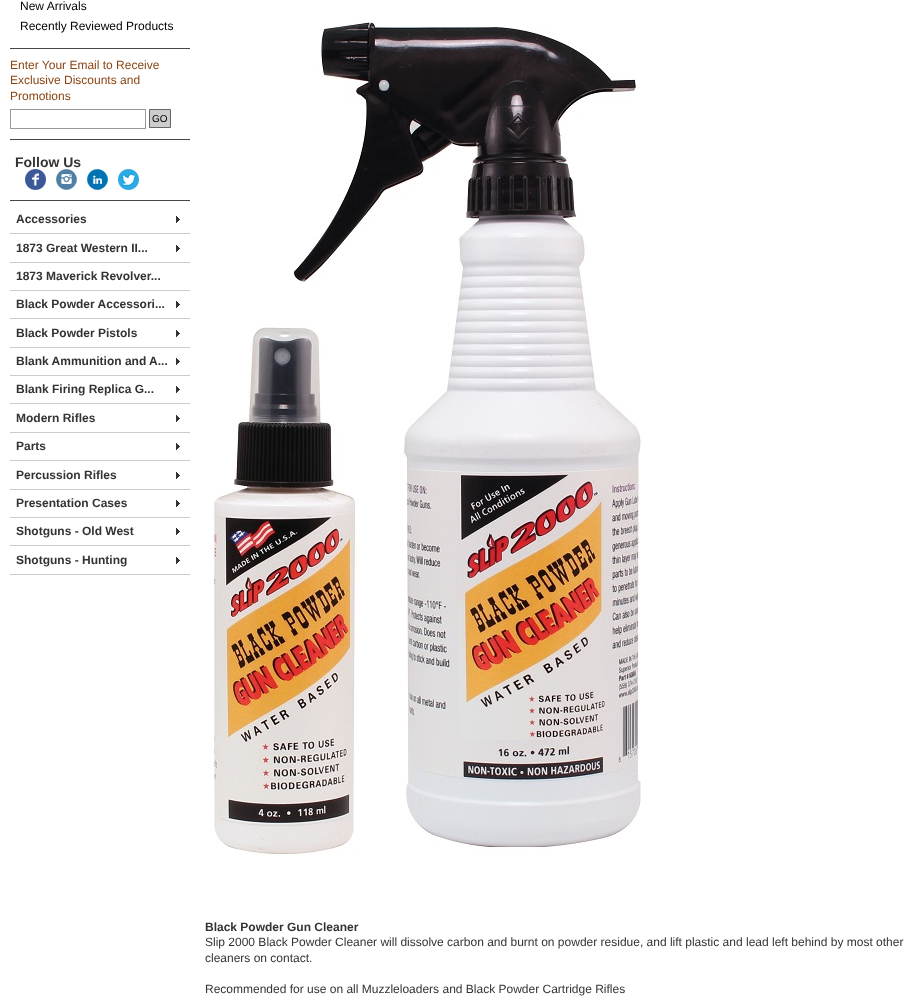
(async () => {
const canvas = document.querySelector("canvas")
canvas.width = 915
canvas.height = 1007
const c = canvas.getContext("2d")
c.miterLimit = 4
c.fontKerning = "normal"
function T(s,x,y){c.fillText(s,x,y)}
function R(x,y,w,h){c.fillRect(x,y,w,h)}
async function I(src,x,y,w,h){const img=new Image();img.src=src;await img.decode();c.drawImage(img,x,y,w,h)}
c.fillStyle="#fff"
R(0,0,915,1007)
c.fillStyle="#454545"
R(10,48,180,1)
c.font="12px Liberation Sans"
c.fillStyle="#000"
T("New Arrivals",20,10)
T("Recently Reviewed Products",20,30)
c.fillStyle="#8b4513"
T("Enter Your Email to Receive",10,69)
T("Exclusive Discounts and",10,84)
T("Promotions",10,100)
c.strokeStyle="#999"
c.strokeRect(10.5,109.5,135,19)
c.fillStyle="#ccc"
c.beginPath()
c.rect(149.5,109.5,21,18)
c.fill()
c.strokeStyle="#666"
c.stroke()
c.font="10px Liberation Sans"
c.fillStyle="#000"
T("GO",152,122)
c.fillStyle="#454545"
R(10,139,180,1)
R(10,200,180,1)
c.font="bold 14px Liberation Sans"
c.fillStyle="#333"
T("Follow Us",15,167)
await I("1.png",25,169,21,21)
await I("2.png",56,169,21,21)
await I("3.png",87,169,21,21)
await I("4.png",118,169,21,21)
c.fillStyle="#ccc"
R(10,233,180,1)
c.font="bold 12px Liberation Sans"
c.fillStyle="#333"
T("Accessories",16,223)
await I("5.png",176,216,4,7)
c.fillStyle="#ccc"
R(10,262,180,1)
c.fillStyle="#333"
T("1873 Great Western II...",16,252)
await I("5.png",176,245,4,7)
c.fillStyle="#ccc"
R(10,290,180,1)
c.fillStyle="#333"
T("1873 Maverick Revolver...",16,280)
c.fillStyle="#ccc"
R(10,318,180,1)
c.fillStyle="#333"
T("Black Powder Accessori...",16,308)
await I("5.png",176,301,4,7)
c.fillStyle="#ccc"
R(10,347,180,1)
c.fillStyle="#333"
T("Black Powder Pistols",16,337)
await I("5.png",176,330,4,7)
c.fillStyle="#ccc"
R(10,375,180,1)
c.fillStyle="#333"
T("Blank Ammunition and A...",16,365)
await I("5.png",176,358,4,7)
c.fillStyle="#ccc"
R(10,403,180,1)
c.fillStyle="#333"
T("Blank Firing Replica G...",16,393)
await I("5.png",176,386,4,7)
c.fillStyle="#ccc"
R(10,432,180,1)
c.fillStyle="#333"
T("Modern Rifles",16,422)
await I("5.png",176,415,4,7)
c.fillStyle="#ccc"
R(10,460,180,1)
c.fillStyle="#333"
T("Parts",16,450)
await I("5.png",176,443,4,7)
c.fillStyle="#ccc"
R(10,489,180,1)
c.fillStyle="#333"
T("Percussion Rifles",16,479)
await I("5.png",176,472,4,7)
c.fillStyle="#ccc"
R(10,517,180,1)
c.fillStyle="#333"
T("Presentation Cases",16,507)
await I("5.png",176,500,4,7)
c.fillStyle="#ccc"
R(10,545,180,1)
c.fillStyle="#333"
T("Shotguns - Old West",16,535)
await I("5.png",176,528,4,7)
c.fillStyle="#ccc"
R(10,574,180,1)
c.fillStyle="#333"
T("Shotguns - Hunting",16,564)
await I("5.png",176,557,4,7)
await I("6.png",208,21,433,834)
T("Black Powder Gun Cleaner",205,931)
c.font="12px Liberation Sans"
T("Slip 2000 Black Powder Cleaner will dissolve carbon and burnt on powder residue, and lift plastic and lead left behind by most other",205,946)
T("cleaners on contact.",205,962)
T("Recommended for use on all Muzzleloaders and Black Powder Cartridge Rifles",205,993)
})()
